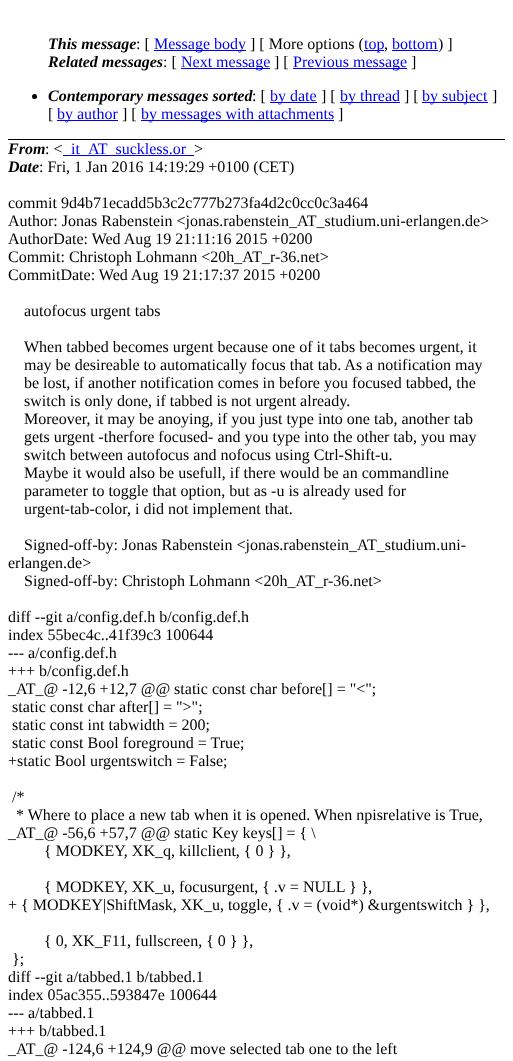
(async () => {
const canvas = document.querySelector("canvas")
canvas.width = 513
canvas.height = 1061
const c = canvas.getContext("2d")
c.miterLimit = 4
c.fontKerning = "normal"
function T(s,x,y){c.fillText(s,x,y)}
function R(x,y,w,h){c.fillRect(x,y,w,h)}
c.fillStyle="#fff"
R(0,0,513,1061)
c.fillStyle="#000"
R(8,139,497,1)
c.font="italic bold 16px Liberation Serif"
T("This message",48,49)
c.font="16px Liberation Serif"
T(": [",136,49)
c.fillStyle="#00e"
R(154,50,92,1)
T("Message body",154,49)
c.fillStyle="#000"
T("] [ More options (",250,49)
c.fillStyle="#00e"
R(364,50,20,1)
T("top",364,49)
c.fillStyle="#000"
T(",",384,49)
c.fillStyle="#00e"
T("bottom",392,49)
R(392,50,46,1)
c.fillStyle="#000"
T(") ]",438,49)
c.font="italic bold 16px Liberation Serif"
T("Related messages",48,67)
c.font="16px Liberation Serif"
T(": [",163,67)
c.fillStyle="#00e"
R(181,68,89,1)
T("Next message",181,67)
c.fillStyle="#000"
T("] [",274,67)
c.fillStyle="#00e"
R(293,68,114,1)
T("Previous message",293,67)
c.fillStyle="#000"
T("]",411,67)
c.beginPath()
c.arc(34.5,96.5,2.5,0,7)
c.fill()
c.font="italic bold 16px Liberation Serif"
T("Contemporary messages sorted",48,101)
c.font="16px Liberation Serif"
T(": [",252,101)
c.fillStyle="#00e"
R(270,102,47,1)
T("by date",270,101)
c.fillStyle="#000"
T("] [",321,101)
c.fillStyle="#00e"
R(340,102,60,1)
T("by thread",340,101)
c.fillStyle="#000"
T("] [",404,101)
c.fillStyle="#00e"
R(422,102,66,1)
T("by subject",422,101)
c.fillStyle="#000"
T("]",492,101)
T("[",48,119)
c.fillStyle="#00e"
R(57,120,61,1)
T("by author",57,119)
c.fillStyle="#000"
T("] [",122,119)
c.fillStyle="#00e"
R(141,120,193,1)
T("by messages with attachments",141,119)
c.fillStyle="#000"
T("]",338,119)
c.font="italic bold 16px Liberation Serif"
T("From",8,154)
c.font="16px Liberation Serif"
T(": <",45,154)
c.fillStyle="#00e"
R(63,155,131,1)
T("it_AT_suckless.or",71,154)
c.fillStyle="#000"
T(">",194,154)
c.font="italic bold 16px Liberation Serif"
T("Date",8,172)
c.font="16px Liberation Serif"
T(": Fri, 1 Jan 2016 14:19:29 +0100 (CET)",39,172)
T("commit 9d4b71ecadd5b3c2c777b273fa4d2c0cc0c3a464",8,208)
T("Author: Jonas Rabenstein <jonas.rabenstein_AT_studium.uni-erlangen.de>",8,226)
T("AuthorDate: Wed Aug 19 21:11:16 2015 +0200",8,244)
T("Commit: Christoph Lohmann <20h_AT_r-36.net>",8,262)
T("CommitDate: Wed Aug 19 21:17:37 2015 +0200",8,280)
T("autofocus urgent tabs",24,316)
T("When tabbed becomes urgent because one of it tabs becomes urgent, it",24,352)
T("may be desireable to automatically focus that tab. As a notification may",24,370)
T("be lost, if another notification comes in before you focused tabbed, the",24,388)
T("switch is only done, if tabbed is not urgent already.",24,406)
T("Moreover, it may be anoying, if you just type into one tab, another tab",24,424)
T("gets urgent -therfore focused- and you type into the other tab, you may",24,442)
T("switch between autofocus and nofocus using Ctrl-Shift-u.",24,460)
T("Maybe it would also be usefull, if there would be an commandline",24,478)
T("parameter to toggle that option, but as -u is already used for",24,496)
T("urgent-tab-color, i did not implement that.",24,514)
T("Signed-off-by: Jonas Rabenstein <jonas.rabenstein_AT_studium.uni-",24,550)
T("erlangen.de>",8,568)
T("Signed-off-by: Christoph Lohmann <20h_AT_r-36.net>",24,586)
T("diff --git a/config.def.h b/config.def.h",8,622)
T("index 55bec4c..41f39c3 100644",8,640)
T("--- a/config.def.h",8,658)
T("+++ b/config.def.h",8,676)
T("_AT_@ -12,6 +12,7 @@ static const char before[] = \"<\";",8,694)
T("static const char after[] = \">\";",12,712)
T("static const int tabwidth = 200;",12,730)
T("static const Bool foreground = True;",12,748)
T("+static Bool urgentswitch = False;",8,766)
T("/*",12,802)
T("* Where to place a new tab when it is opened. When npisrelative is True,",16,820)
T("_AT_@ -56,6 +57,7 @@ static Key keys[] = { \\",8,838)
T("{ MODKEY, XK_q, killclient, { 0 } },",44,856)
T("{ MODKEY, XK_u, focusurgent, { .v = NULL } },",44,892)
T("+ { MODKEY|ShiftMask, XK_u, toggle, { .v = (void*) &urgentswitch } },",8,910)
T("{ 0, XK_F11, fullscreen, { 0 } },",44,946)
T("};",12,964)
T("diff --git a/tabbed.1 b/tabbed.1",8,982)
T("index 05ac355..593847e 100644",8,1000)
T("--- a/tabbed.1",8,1018)
T("+++ b/tabbed.1",8,1036)
T("_AT_@ -124,6 +124,9 @@ move selected tab one to the left",8,1054)
})()
